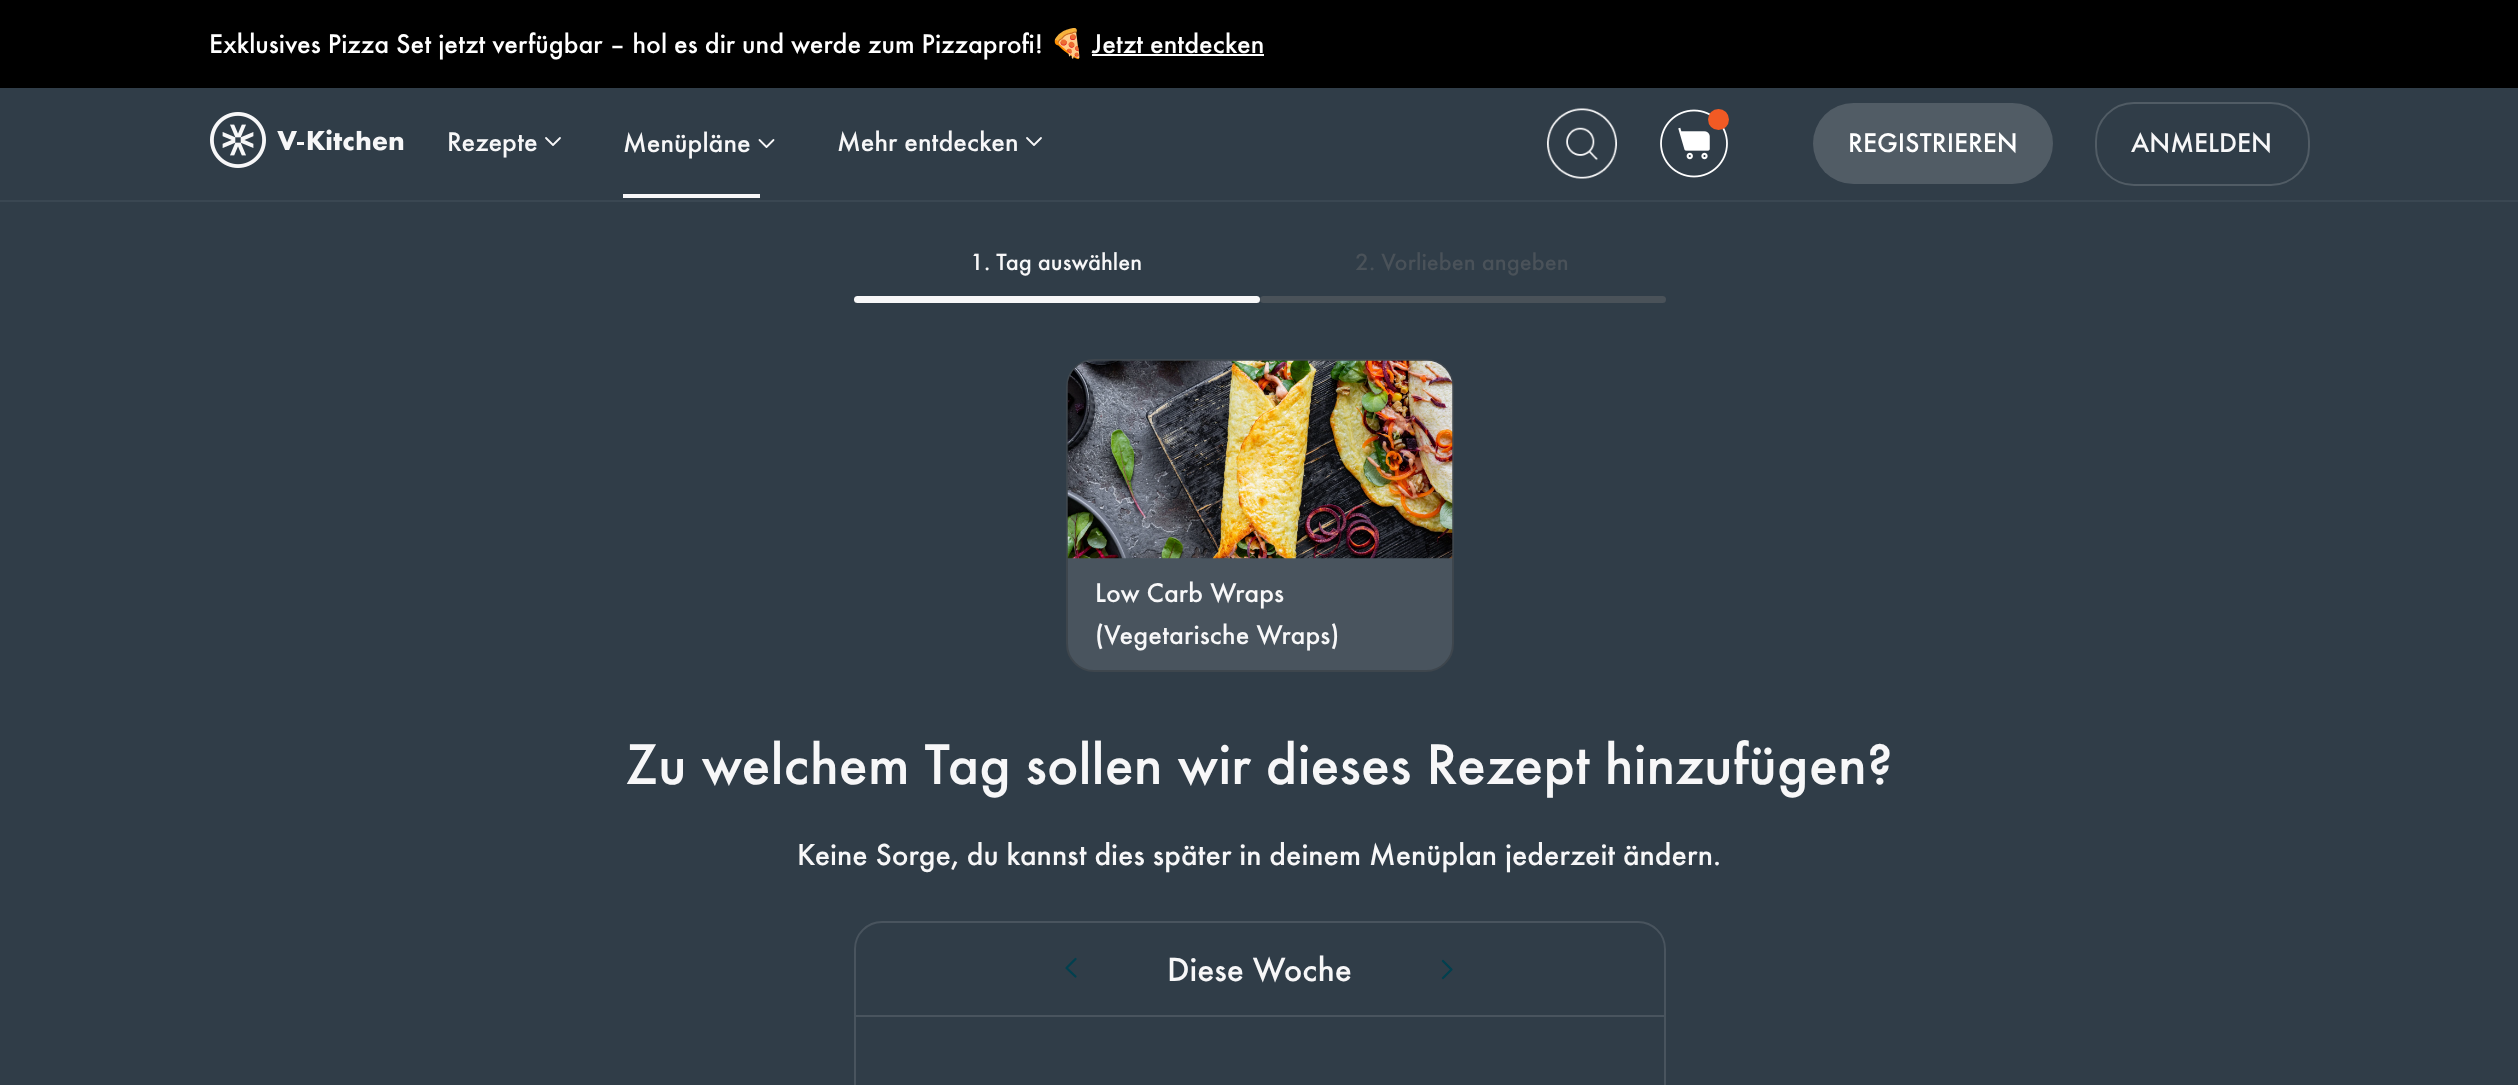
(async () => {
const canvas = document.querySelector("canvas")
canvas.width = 2518
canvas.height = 1085
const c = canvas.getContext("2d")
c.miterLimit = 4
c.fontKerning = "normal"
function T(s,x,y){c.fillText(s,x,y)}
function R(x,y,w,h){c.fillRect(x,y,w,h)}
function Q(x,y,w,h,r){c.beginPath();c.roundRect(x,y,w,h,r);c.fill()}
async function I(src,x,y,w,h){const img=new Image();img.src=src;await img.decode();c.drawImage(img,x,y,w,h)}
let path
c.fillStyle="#303d48"
R(0,0,2518,1085)
c.fillStyle="#000"
R(0,0,2518,88)
c.font="500 28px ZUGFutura"
c.fillStyle="#fff"
T("Exklusives Pizza Set jetzt verfügbar – hol es dir und werde zum Pizzaprofi!",209,53)
c.font="28px Noto Color Emoji"
T("🍕",1050,53)
c.font="500 28px ZUGFutura"
T("Jetzt entdecken",1092,53)
R(1092,54,172,2)
c.fillStyle="#3a4752"
R(0,200,2518,2)
await I("1.png",210,112,194,56)
c.fillStyle="#f7f7f8"
T("Rezepte",447,151)
path = new Path2D("M546 138l7 7l7-7")
c.strokeStyle="#f7f7f8"
c.lineWidth=1.8
c.lineCap="round"
c.lineJoin="round"
c.stroke(path)
T("Menüpläne",623,152)
path = new Path2D("M759.5 140l7 7l7-7")
c.stroke(path)
R(623,194,137,4)
T("Mehr entdecken",837,151)
path = new Path2D("M1027 138l7 7l7-7")
c.stroke(path)
await I("2.png",1547,108,70,71)
await I("3.png",1660,109,68,69)
c.fillStyle="#f15a24"
c.beginPath()
c.arc(1718.5,119.5,10.5,0,7)
c.fill()
c.fillStyle="#515c65"
Q(1813,103,240,81,40.5)
c.fillStyle="#fff"
T("REGISTRIEREN",1848,152)
c.beginPath()
c.roundRect(2096,103,213,82,38)
c.strokeStyle="#515c65"
c.lineWidth=2
c.lineJoin="miter"
c.stroke()
c.fillStyle="#f7f7f8"
T("ANMELDEN",2131,152)
c.font="500 24.5px ZUGFutura"
T("1. Tag auswählen",970,270)
Q(854,296,406,7,3.5)
c.fillStyle="#4a5259"
T("2. Vorlieben angeben",1355,270)
Q(1260,296,406,7,3.5)
c.fillStyle="#49545e"
c.beginPath()
c.roundRect(1067,360,386,311,27)
c.fill()
c.strokeStyle="#3e464d"
c.stroke()
await I("4.png",1067,360,386,199)
c.font="500 28px ZUGFutura"
c.fillStyle="#f7f7f8"
T("Low Carb Wraps",1095,602)
T("(Vegetarische Wraps)",1095,644)
c.font="500 59.5px ZUGFutura"
T("Zu welchem Tag sollen wir dieses Rezept hinzufügen?",625,784)
c.font="500 31.5px ZUGFutura"
T("Keine Sorge, du kannst dies später in deinem Menüplan jederzeit ändern.",797,865)
c.beginPath()
c.roundRect(855,922,810,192,27)
c.strokeStyle="#49545e"
c.stroke()
c.fillStyle="#49545e"
R(856,1015,808,2)
path = new Path2D("M1075.5 959l-9 9l9 8.5")
c.strokeStyle="#01404f"
c.lineWidth=2.2
c.lineJoin="round"
c.stroke(path)
c.font="500 35px ZUGFutura"
c.fillStyle="#f7f7f8"
T("Diese Woche",1167,981)
path = new Path2D("M1443 978l8.5-8.5l-8.5-8.5")
c.stroke(path)
})()
